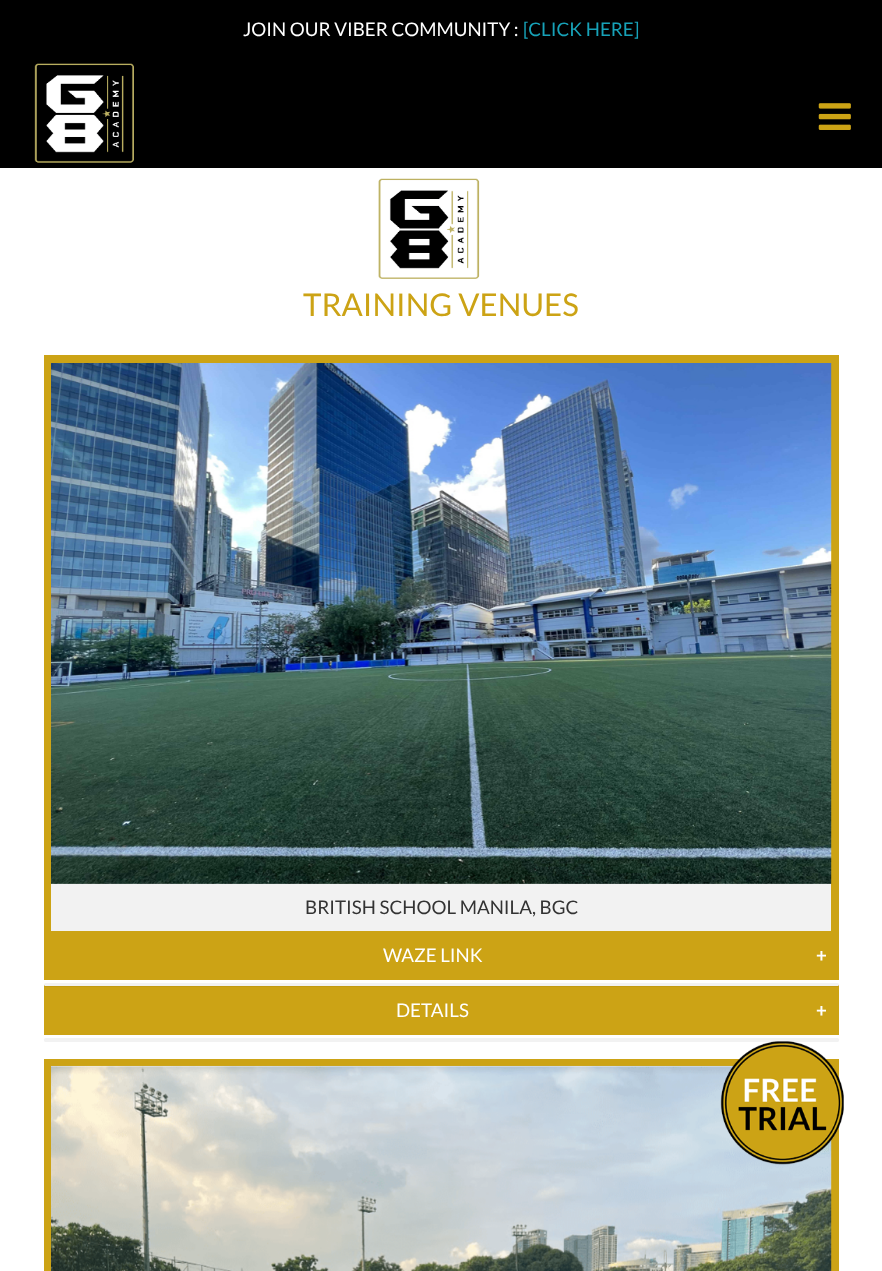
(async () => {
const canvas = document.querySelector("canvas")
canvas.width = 882
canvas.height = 1271
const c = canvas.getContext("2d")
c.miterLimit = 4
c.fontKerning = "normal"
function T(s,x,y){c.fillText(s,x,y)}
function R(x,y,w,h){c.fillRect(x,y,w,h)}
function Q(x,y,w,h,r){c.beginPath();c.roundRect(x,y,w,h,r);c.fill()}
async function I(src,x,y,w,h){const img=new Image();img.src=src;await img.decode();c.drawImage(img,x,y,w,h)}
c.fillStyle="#fff"
R(0,0,882,1271)
c.fillStyle="#000"
R(0,0,882,168)
c.font="18.75px Lato"
c.fillStyle="#fff"
T("JOIN OUR VIBER COMMUNITY :",243,36)
c.fillStyle="#17a2b8"
T("[CLICK HERE]",523,36)
await I("1.png",34,63,100,100)
await I("2.png",818,103,33,27)
await I("3.png",378,178,102,101)
c.font="31.25px Lato"
c.fillStyle="#cca315"
T("TRAINING VENUES",303,316)
c.fillStyle="#f2f2f2"
R(51,883,780,48)
c.fillStyle="#cca315"
R(44,355,795,8)
R(831,355,8,576)
R(44,355,7,576)
await I("4.png",51,363,781,521)
c.font="18.75px Lato"
c.fillStyle="#333"
T("BRITISH SCHOOL MANILA, BGC",305,914)
c.fillStyle="#cca315"
R(44,931,795,49)
c.fillStyle="#fff"
T("WAZE LINK",383,962)
c.font="bold 18.75px Lato"
T("+",816,962)
c.fillStyle="#cca315"
R(44,985,795,50)
c.fillStyle="#0000000d"
c.filter="blur(0.5px)"
c.beginPath()
c.roundRect(44,984,795,3,1.5)
c.fill()
c.filter="none"
c.fillStyle="#f2f2f2"
Q(44,983,795,3,1.5)
c.font="18.75px Lato"
c.fillStyle="#fff"
T("DETAILS",396,1017)
c.font="bold 18.75px Lato"
T("+",816,1017)
c.fillStyle="#0000000d"
c.filter="blur(0.5px)"
c.beginPath()
c.roundRect(44,1039,795,3,1.5)
c.fill()
c.filter="none"
c.fillStyle="#f2f2f2"
Q(44,1038,795,3,1.5)
R(51,1066,779,1)
c.fillStyle="#cca315"
R(44,1059,795,7)
R(831,1059,8,212)
R(44,1059,7,212)
await I("5.png",51,1065,781,206)
await I("6.png",720,1041,124,124)
})()
